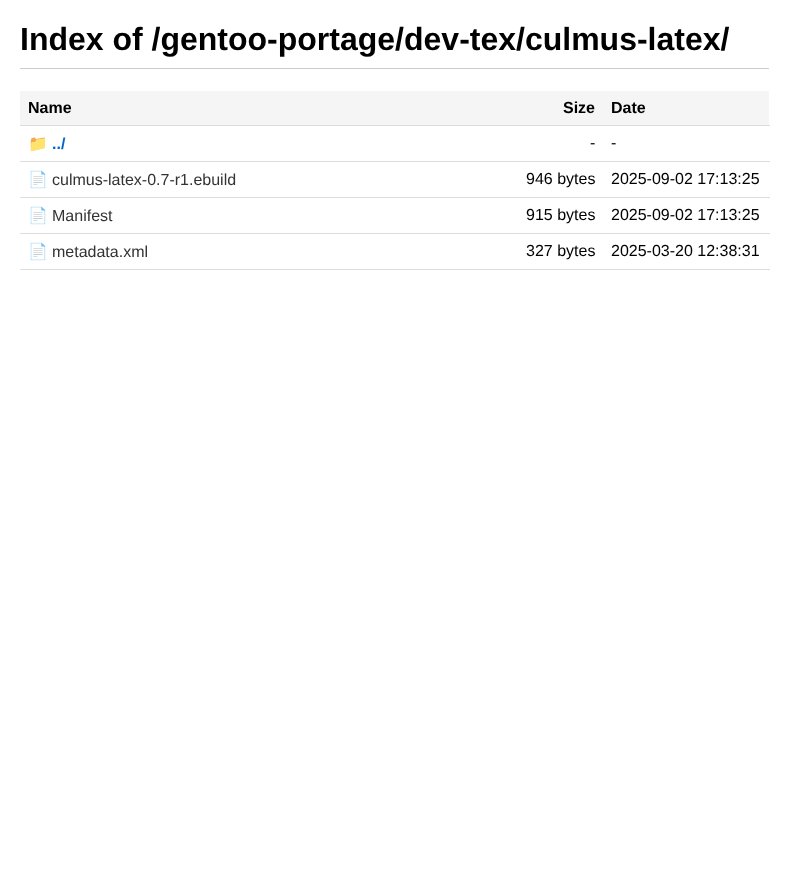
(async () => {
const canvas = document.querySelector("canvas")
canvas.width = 789
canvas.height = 888
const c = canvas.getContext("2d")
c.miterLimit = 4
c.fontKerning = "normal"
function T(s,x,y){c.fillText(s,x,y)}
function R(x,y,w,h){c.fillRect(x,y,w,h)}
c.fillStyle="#fff"
R(0,0,789,888)
c.fillStyle="#ccc"
R(20,68,749,1)
c.font="bold 32px Liberation Sans"
c.fillStyle="#000"
T("Index of /gentoo-portage/dev-tex/culmus-latex/",20,50)
c.fillStyle="#f5f5f5"
R(20,91,749,34)
c.font="bold 16px Liberation Sans"
c.fillStyle="#000"
T("Name",28,113)
T("Size",563,113)
c.fillStyle="#ddd"
R(20,125,750,1)
c.fillStyle="#000"
T("Date",611,113)
c.font="bold 16px Noto Color Emoji"
c.fillStyle="#06c"
T("📁",28,149)
c.font="bold 16px Liberation Sans"
T("../",52,149)
c.font="16px Liberation Sans"
c.fillStyle="#000"
T("-",590,148)
c.fillStyle="#ddd"
R(20,161,750,1)
c.fillStyle="#000"
T("-",611,148)
c.font="16px Noto Color Emoji"
c.fillStyle="#333"
T("📄",28,185)
c.font="16px Liberation Sans"
T("culmus-latex-0.7-r1.ebuild",52,185)
c.fillStyle="#000"
T("946 bytes",526,184)
c.fillStyle="#ddd"
R(20,197,750,1)
c.fillStyle="#000"
T("2025-09-02 17:13:25",611,184)
c.font="16px Noto Color Emoji"
c.fillStyle="#333"
T("📄",28,221)
c.font="16px Liberation Sans"
T("Manifest",52,221)
c.fillStyle="#000"
T("915 bytes",526,220)
c.fillStyle="#ddd"
R(20,233,750,1)
c.fillStyle="#000"
T("2025-09-02 17:13:25",611,220)
c.font="16px Noto Color Emoji"
c.fillStyle="#333"
T("📄",28,257)
c.font="16px Liberation Sans"
T("metadata.xml",52,257)
c.fillStyle="#000"
T("327 bytes",526,256)
c.fillStyle="#ddd"
R(20,269,750,1)
c.fillStyle="#000"
T("2025-03-20 12:38:31",611,256)
})()
